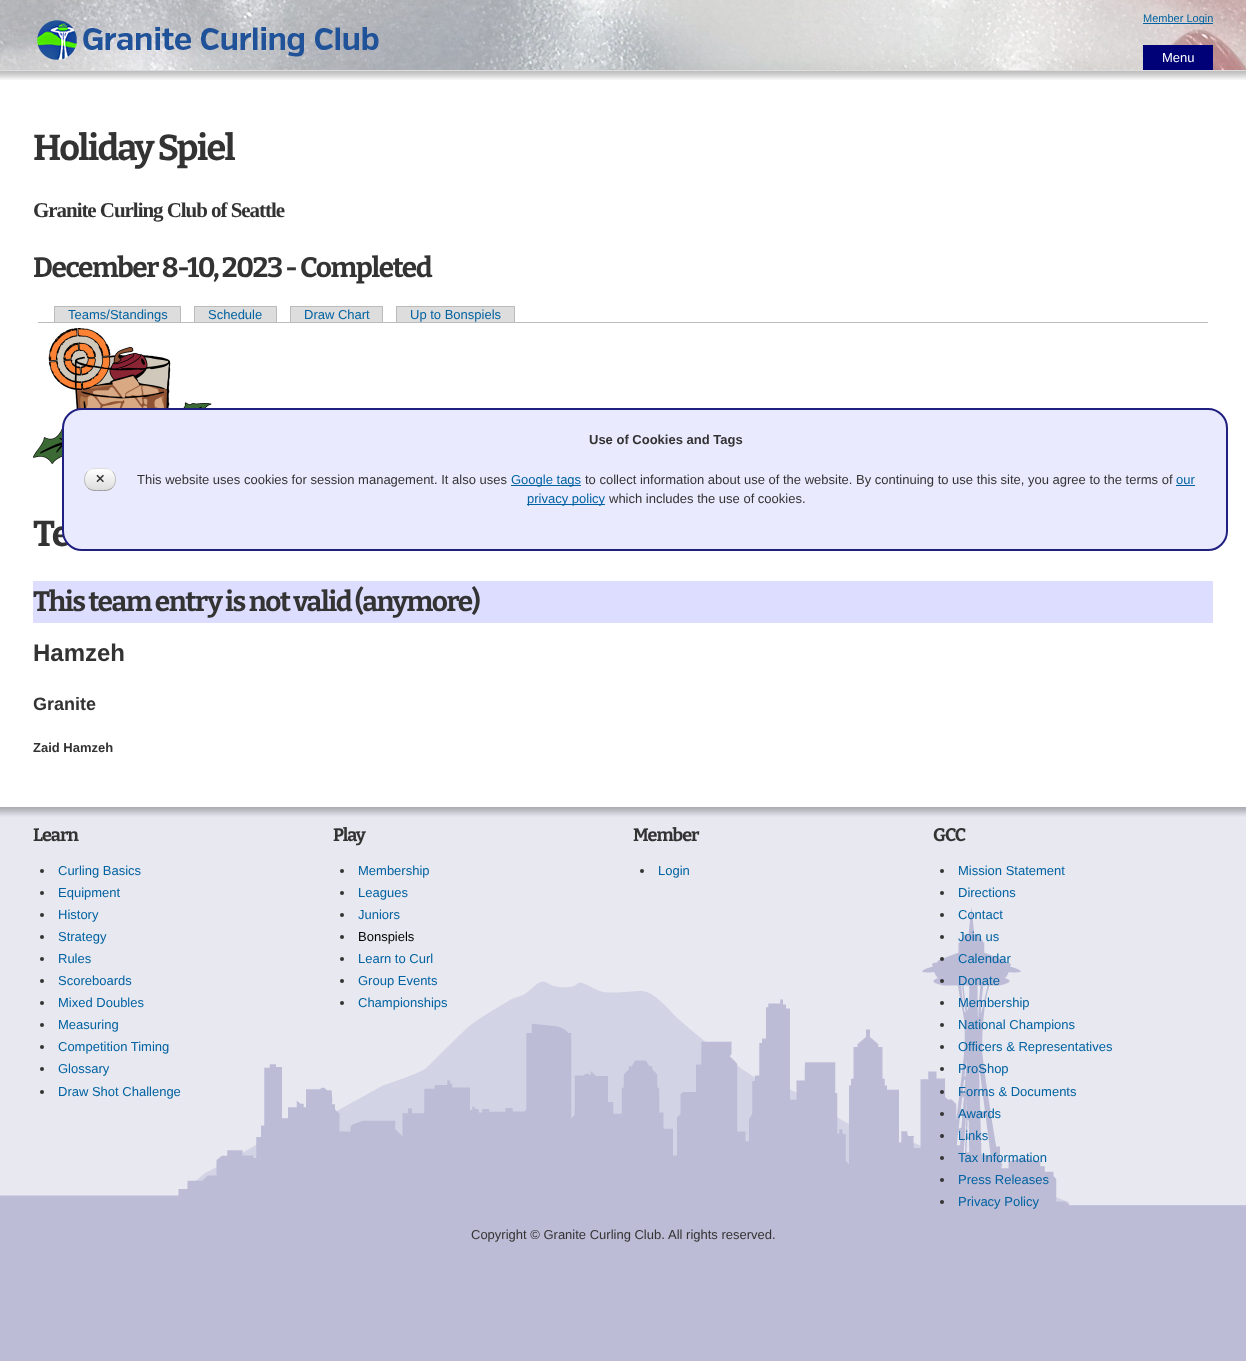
(async () => {
const canvas = document.querySelector("canvas")
canvas.width = 1246
canvas.height = 1361
const c = canvas.getContext("2d")
c.miterLimit = 4
c.fontKerning = "normal"
function T(s,x,y){c.fillText(s,x,y)}
function R(x,y,w,h){c.fillRect(x,y,w,h)}
async function I(src,x,y,w,h){const img=new Image();img.src=src;await img.decode();c.drawImage(img,x,y,w,h)}
let gradient, path
c.fillStyle="#bcbcd7"
R(0,0,1246,1361)
await I("1.png",0,0,1246,70)
await I("2.png",37,20,342,40)
c.fillStyle="#0062a0"
R(1143,23,70,1)
c.font="11px Liberation Sans"
T("Member Login",1143,22)
c.fillStyle="#007"
R(1143,45,70,25)
c.font="13px Liberation Sans"
c.fillStyle="#fff"
T("Menu",1162,62)
R(0,71,1246,736)
await I("3.png",0,71,1246,9)
c.fillStyle="#ddd"
R(0,70,1246,1)
c.letterSpacing="-1.75px"
c.font="bold 36px Bitter"
c.fillStyle="#333"
T("Holiday Spiel",33,160)
c.letterSpacing="-1.05px"
c.font="bold 21px Liberation Serif"
T("Granite Curling Club of Seattle",33,217)
c.letterSpacing="-1.4px"
c.font="bold 28px Bitter"
T("December 8-10, 2023 - Completed",33,277)
c.fillStyle="#bbb"
R(38,322,1170,1)
c.fillStyle="#ddd"
R(55,307,125,15)
c.letterSpacing="0px"
c.font="13px Liberation Sans"
c.fillStyle="#0062a0"
T("Teams/Standings",68,319)
c.fillStyle="#bbb"
R(54,306,127,1)
R(180,306,1,16)
R(54,306,1,16)
c.fillStyle="#ddd"
R(195,307,81,15)
c.fillStyle="#0062a0"
T("Schedule",208,319)
c.fillStyle="#bbb"
R(194,306,83,1)
R(276,306,1,16)
R(194,306,1,16)
c.fillStyle="#ddd"
R(291,307,91,15)
c.fillStyle="#0062a0"
T("Draw Chart",304,319)
c.fillStyle="#bbb"
R(290,306,93,1)
R(382,306,1,16)
R(290,306,1,16)
c.fillStyle="#ddd"
R(397,307,117,15)
c.fillStyle="#0062a0"
T("Up to Bonspiels",410,319)
c.fillStyle="#bbb"
R(396,306,119,1)
R(514,306,1,16)
R(396,306,1,16)
await I("4.png",33,328,200,139)
c.letterSpacing="-1.75px"
c.font="bold 36px Bitter"
c.fillStyle="#333"
T("Te",33,546)
c.fillStyle="#ddf"
R(33,581,1180,42)
c.letterSpacing="-1.4px"
c.font="bold 28px Bitter"
c.fillStyle="#333"
T("This team entry is not valid (anymore)",33,611)
c.letterSpacing="0px"
c.font="bold 24px Liberation Sans"
T("Hamzeh",33,661)
c.font="bold 18px Liberation Sans"
T("Granite",33,710)
c.font="bold 13px Liberation Sans"
T("Zaid Hamzeh",33,752)
c.fillStyle="#e8e8f1"
R(0,807,1246,99)
await I("5.png",0,807,1246,418)
c.letterSpacing="-1px"
c.font="bold 18px Bitter"
c.fillStyle="#333"
T("Learn",33,841)
c.beginPath()
c.arc(42,871,2,0,7)
c.fill()
c.letterSpacing="0px"
c.font="13px Liberation Sans"
c.fillStyle="#0062a0"
T("Curling Basics",58,875)
c.fillStyle="#333"
c.beginPath()
c.arc(42,893,2,0,7)
c.fill()
c.fillStyle="#0062a0"
T("Equipment",58,897)
c.fillStyle="#333"
c.beginPath()
c.arc(42,915,2,0,7)
c.fill()
c.fillStyle="#0062a0"
T("History",58,919)
c.fillStyle="#333"
c.beginPath()
c.arc(42,937,2,0,7)
c.fill()
c.fillStyle="#0062a0"
T("Strategy",58,941)
c.fillStyle="#333"
c.beginPath()
c.arc(42,959,2,0,7)
c.fill()
c.fillStyle="#0062a0"
T("Rules",58,963)
c.fillStyle="#333"
c.beginPath()
c.arc(42,981,2,0,7)
c.fill()
c.fillStyle="#0062a0"
T("Scoreboards",58,985)
c.fillStyle="#333"
c.beginPath()
c.arc(42,1003,2,0,7)
c.fill()
c.fillStyle="#0062a0"
T("Mixed Doubles",58,1007)
c.fillStyle="#333"
c.beginPath()
c.arc(42,1025,2,0,7)
c.fill()
c.fillStyle="#0062a0"
T("Measuring",58,1029)
c.fillStyle="#333"
c.beginPath()
c.arc(42,1047,2,0,7)
c.fill()
c.fillStyle="#0062a0"
T("Competition Timing",58,1051)
c.fillStyle="#333"
c.beginPath()
c.arc(42,1069,2,0,7)
c.fill()
c.fillStyle="#0062a0"
T("Glossary",58,1073)
c.fillStyle="#333"
c.beginPath()
c.arc(42,1092,2,0,7)
c.fill()
c.fillStyle="#0062a0"
T("Draw Shot Challenge",58,1096)
c.letterSpacing="-1px"
c.font="bold 18px Bitter"
c.fillStyle="#333"
T("Play",333,841)
c.beginPath()
c.arc(342,871,2,0,7)
c.fill()
c.letterSpacing="0px"
c.font="13px Liberation Sans"
c.fillStyle="#0062a0"
T("Membership",358,875)
c.fillStyle="#333"
c.beginPath()
c.arc(342,893,2,0,7)
c.fill()
c.fillStyle="#0062a0"
T("Leagues",358,897)
c.fillStyle="#333"
c.beginPath()
c.arc(342,915,2,0,7)
c.fill()
c.fillStyle="#0062a0"
T("Juniors",358,919)
c.fillStyle="#333"
c.beginPath()
c.arc(342,937,2,0,7)
c.fill()
c.fillStyle="#000"
T("Bonspiels",358,941)
c.fillStyle="#333"
c.beginPath()
c.arc(342,959,2,0,7)
c.fill()
c.fillStyle="#0062a0"
T("Learn to Curl",358,963)
c.fillStyle="#333"
c.beginPath()
c.arc(342,981,2,0,7)
c.fill()
c.fillStyle="#0062a0"
T("Group Events",358,985)
c.fillStyle="#333"
c.beginPath()
c.arc(342,1003,2,0,7)
c.fill()
c.fillStyle="#0062a0"
T("Championships",358,1007)
c.letterSpacing="-1px"
c.font="bold 18px Bitter"
c.fillStyle="#333"
T("Member",633,841)
c.beginPath()
c.arc(642,871,2,0,7)
c.fill()
c.letterSpacing="0px"
c.font="13px Liberation Sans"
c.fillStyle="#0062a0"
T("Login",658,875)
c.letterSpacing="-1px"
c.font="bold 18px Bitter"
c.fillStyle="#333"
T("GCC",933,841)
c.beginPath()
c.arc(942,871,2,0,7)
c.fill()
c.letterSpacing="0px"
c.font="13px Liberation Sans"
c.fillStyle="#0062a0"
T("Mission Statement",958,875)
c.fillStyle="#333"
c.beginPath()
c.arc(942,893,2,0,7)
c.fill()
c.fillStyle="#0062a0"
T("Directions",958,897)
c.fillStyle="#333"
c.beginPath()
c.arc(942,915,2,0,7)
c.fill()
c.fillStyle="#0062a0"
T("Contact",958,919)
c.fillStyle="#333"
c.beginPath()
c.arc(942,937,2,0,7)
c.fill()
c.fillStyle="#0062a0"
T("Join us",958,941)
c.fillStyle="#333"
c.beginPath()
c.arc(942,959,2,0,7)
c.fill()
c.fillStyle="#0062a0"
T("Calendar",958,963)
c.fillStyle="#333"
c.beginPath()
c.arc(942,981,2,0,7)
c.fill()
c.fillStyle="#0062a0"
T("Donate",958,985)
c.fillStyle="#333"
c.beginPath()
c.arc(942,1003,2,0,7)
c.fill()
c.fillStyle="#0062a0"
T("Membership",958,1007)
c.fillStyle="#333"
c.beginPath()
c.arc(942,1025,2,0,7)
c.fill()
c.fillStyle="#0062a0"
T("National Champions",958,1029)
c.fillStyle="#333"
c.beginPath()
c.arc(942,1047,2,0,7)
c.fill()
c.fillStyle="#0062a0"
T("Officers & Representatives",958,1051)
c.fillStyle="#333"
c.beginPath()
c.arc(942,1069,2,0,7)
c.fill()
c.fillStyle="#0062a0"
T("ProShop",958,1073)
c.fillStyle="#333"
c.beginPath()
c.arc(942,1092,2,0,7)
c.fill()
c.fillStyle="#0062a0"
T("Forms & Documents",958,1096)
c.fillStyle="#333"
c.beginPath()
c.arc(942,1114,2,0,7)
c.fill()
c.fillStyle="#0062a0"
T("Awards",958,1118)
c.fillStyle="#333"
c.beginPath()
c.arc(942,1136,2,0,7)
c.fill()
c.fillStyle="#0062a0"
T("Links",958,1140)
c.fillStyle="#333"
c.beginPath()
c.arc(942,1158,2,0,7)
c.fill()
c.fillStyle="#0062a0"
T("Tax Information",958,1162)
c.fillStyle="#333"
c.beginPath()
c.arc(942,1180,2,0,7)
c.fill()
c.fillStyle="#0062a0"
T("Press Releases",958,1184)
c.fillStyle="#333"
c.beginPath()
c.arc(942,1202,2,0,7)
c.fill()
c.fillStyle="#0062a0"
T("Privacy Policy",958,1206)
c.fillStyle="#333"
T("Copyright © Granite Curling Club.",471,1239)
T("All rights reserved.",668,1239)
c.fillStyle="#eaeaff"
c.beginPath()
c.roundRect(63,409,1164,141,19)
c.fill()
c.strokeStyle="#202080"
c.lineWidth=2
c.stroke()
c.save()
c.beginPath()
c.roundRect(84,468,32,23,11)
c.clip()
gradient = c.createLinearGradient(85,469,85,490)
gradient.addColorStop(0,"#fff")
gradient.addColorStop(1,"#ddd")
c.fillStyle = gradient
R(84,469,32,21)
c.restore()
path = new Path2D("M87.5 471.5c3.5-3.5 8-3 12.5-3c4.5 0 9-.5 12.5 3")
c.strokeStyle="#ddd"
c.lineWidth=1
c.stroke(path)
path = new Path2D("M112.5 471.5c4 4 4 12 0 16")
c.strokeStyle="#bbb"
c.stroke(path)
path = new Path2D("M112.5 487.5c-3.5 3.5-8 3-12.5 3c-4.5 0-9 .5-12.5-3")
c.strokeStyle="#999"
c.stroke(path)
path = new Path2D("M87.5 487.5c-4-4-4-12 0-16")
c.strokeStyle="#bbb"
c.stroke(path)
c.font="bold 12px DejaVu Sans"
c.fillStyle="#333"
T("✕",95,483)
c.font="bold 13px Liberation Sans"
T("Use of Cookies and Tags",589,444)
c.font="13px Liberation Sans"
T("This website uses cookies for session management. It also uses",137,484)
c.fillStyle="#0062a0"
R(511,485,70,1)
T("Google tags",511,484)
c.fillStyle="#333"
T("to collect information about use of the website. By continuing to use this site, you agree to the terms of",585,484)
c.fillStyle="#0062a0"
T("our",1176,484)
R(1176,485,19,1)
R(527,504,78,1)
T("privacy policy",527,503)
c.fillStyle="#333"
T("which includes the use of cookies.",609,503)
})()
